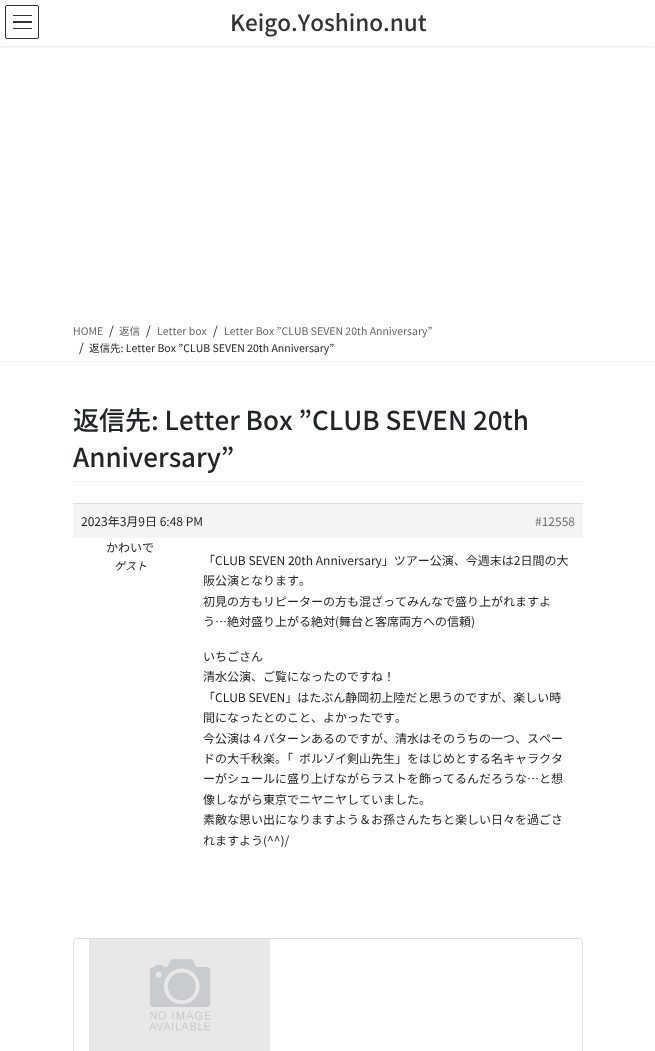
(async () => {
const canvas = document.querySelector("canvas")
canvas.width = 655
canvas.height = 1051
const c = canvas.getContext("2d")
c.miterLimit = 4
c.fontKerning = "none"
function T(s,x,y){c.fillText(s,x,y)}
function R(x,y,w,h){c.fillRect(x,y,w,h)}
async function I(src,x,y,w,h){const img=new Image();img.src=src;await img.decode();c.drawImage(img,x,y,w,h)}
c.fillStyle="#fff"
R(0,0,655,1051)
c.save()
c.beginPath()
c.rect(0,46,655,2)
c.clip()
c.fillStyle="#0000001a"
c.filter="blur(1.5px)"
c.beginPath()
c.rect(0,1,655,46)
c.fill()
c.filter="none"
c.restore()
c.fillStyle="#333"
R(13,15,19,1)
R(13,21,19,2)
R(13,28,19,1)
c.beginPath()
c.roundRect(5.5,5.5,33,33,1.5)
c.strokeStyle="#333"
c.stroke()
c.font="500 22.5px Noto Sans JP"
T("Keigo.Yoshino.nut",230,31)
c.fillStyle="#f2f2f2"
R(0,361,655,1)
c.font="10.5px Noto Sans JP"
c.fillStyle="#666"
T("HOME",73,335)
c.font="12px Noto Sans JP"
c.fillStyle="#212529"
T("/",109,335)
c.font="10.5px Noto Sans JP"
c.fillStyle="#666"
T("返信",119,335)
c.font="12px Noto Sans JP"
c.fillStyle="#212529"
T("/",146,335)
c.font="10.5px Noto Sans JP"
c.fillStyle="#666"
T("Letter box",157,335)
c.font="12px Noto Sans JP"
c.fillStyle="#212529"
T("/",213,335)
c.font="10.5px Noto Sans JP"
c.fillStyle="#666"
T("Letter Box ”CLUB SEVEN 20th Anniversary”",224,335)
c.font="12px Noto Sans JP"
c.fillStyle="#212529"
T("/",79,352)
c.font="10.5px Noto Sans JP"
T("返信先: Letter Box ”CLUB SEVEN 20th Anniversary”",89,352)
c.fillStyle="#f2f2f2"
R(73,481,510,1)
c.font="500 26px Noto Sans JP"
c.fillStyle="#212529"
T("返信先: Letter Box ”CLUB SEVEN 20th",73,430)
T("Anniversary”",73,467)
c.fillStyle="#f4f4f4"
R(73,504,510,34)
c.fillStyle="#ddd"
R(73,503,510,1)
c.font="12px Noto Sans JP"
c.fillStyle="#212529"
T("2023年3月9日 6:48 PM",81,526)
c.fillStyle="#707070"
T("#12558",535,526)
c.fillStyle="#212529"
T("かわいで",106,552)
c.font="italic 11px Noto Sans JP"
T("ゲスト",114,570)
c.font="12px Noto Sans JP"
T("「CLUB SEVEN 20th Anniversary」ツアー公演、今週末は2日間の大",203,565)
T("阪公演となります。",203,585)
T("初見の方もリピーターの方も混ざってみんなで盛り上がれますよ",203,606)
T("う…絶対盛り上がる絶対(舞台と客席両方への信頼)",203,626)
T("いちごさん",203,661)
T("清水公演、ご覧になったのですね！",203,681)
T("「CLUB SEVEN」はたぶん静岡初上陸だと思うのですが、楽しい時",203,702)
T("間になったとのこと、よかったです。",203,722)
T("今公演は４パターンあるのですが、清水はそのうちの一つ、スペー",203,743)
T("ドの大千秋楽。「",203,763)
T("ボルゾイ剣山先生」をはじめとする名キャラクタ",299,763)
T("ーがシュールに盛り上げながらラストを飾ってるんだろうな…と想",203,783)
T("像しながら東京でニヤニヤしていました。",203,804)
T("素敵な思い出になりますよう＆お孫さんたちと楽しい日々を過ごさ",203,824)
T("れますよう(^^)/",203,845)
c.beginPath()
c.roundRect(73.5,938.5,509,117,3.5)
c.strokeStyle="#dfdfdf"
c.stroke()
await I("1.png",90,939,180,112)
c.fillStyle="#e5e5e5"
R(89,939,1,112)
})()
